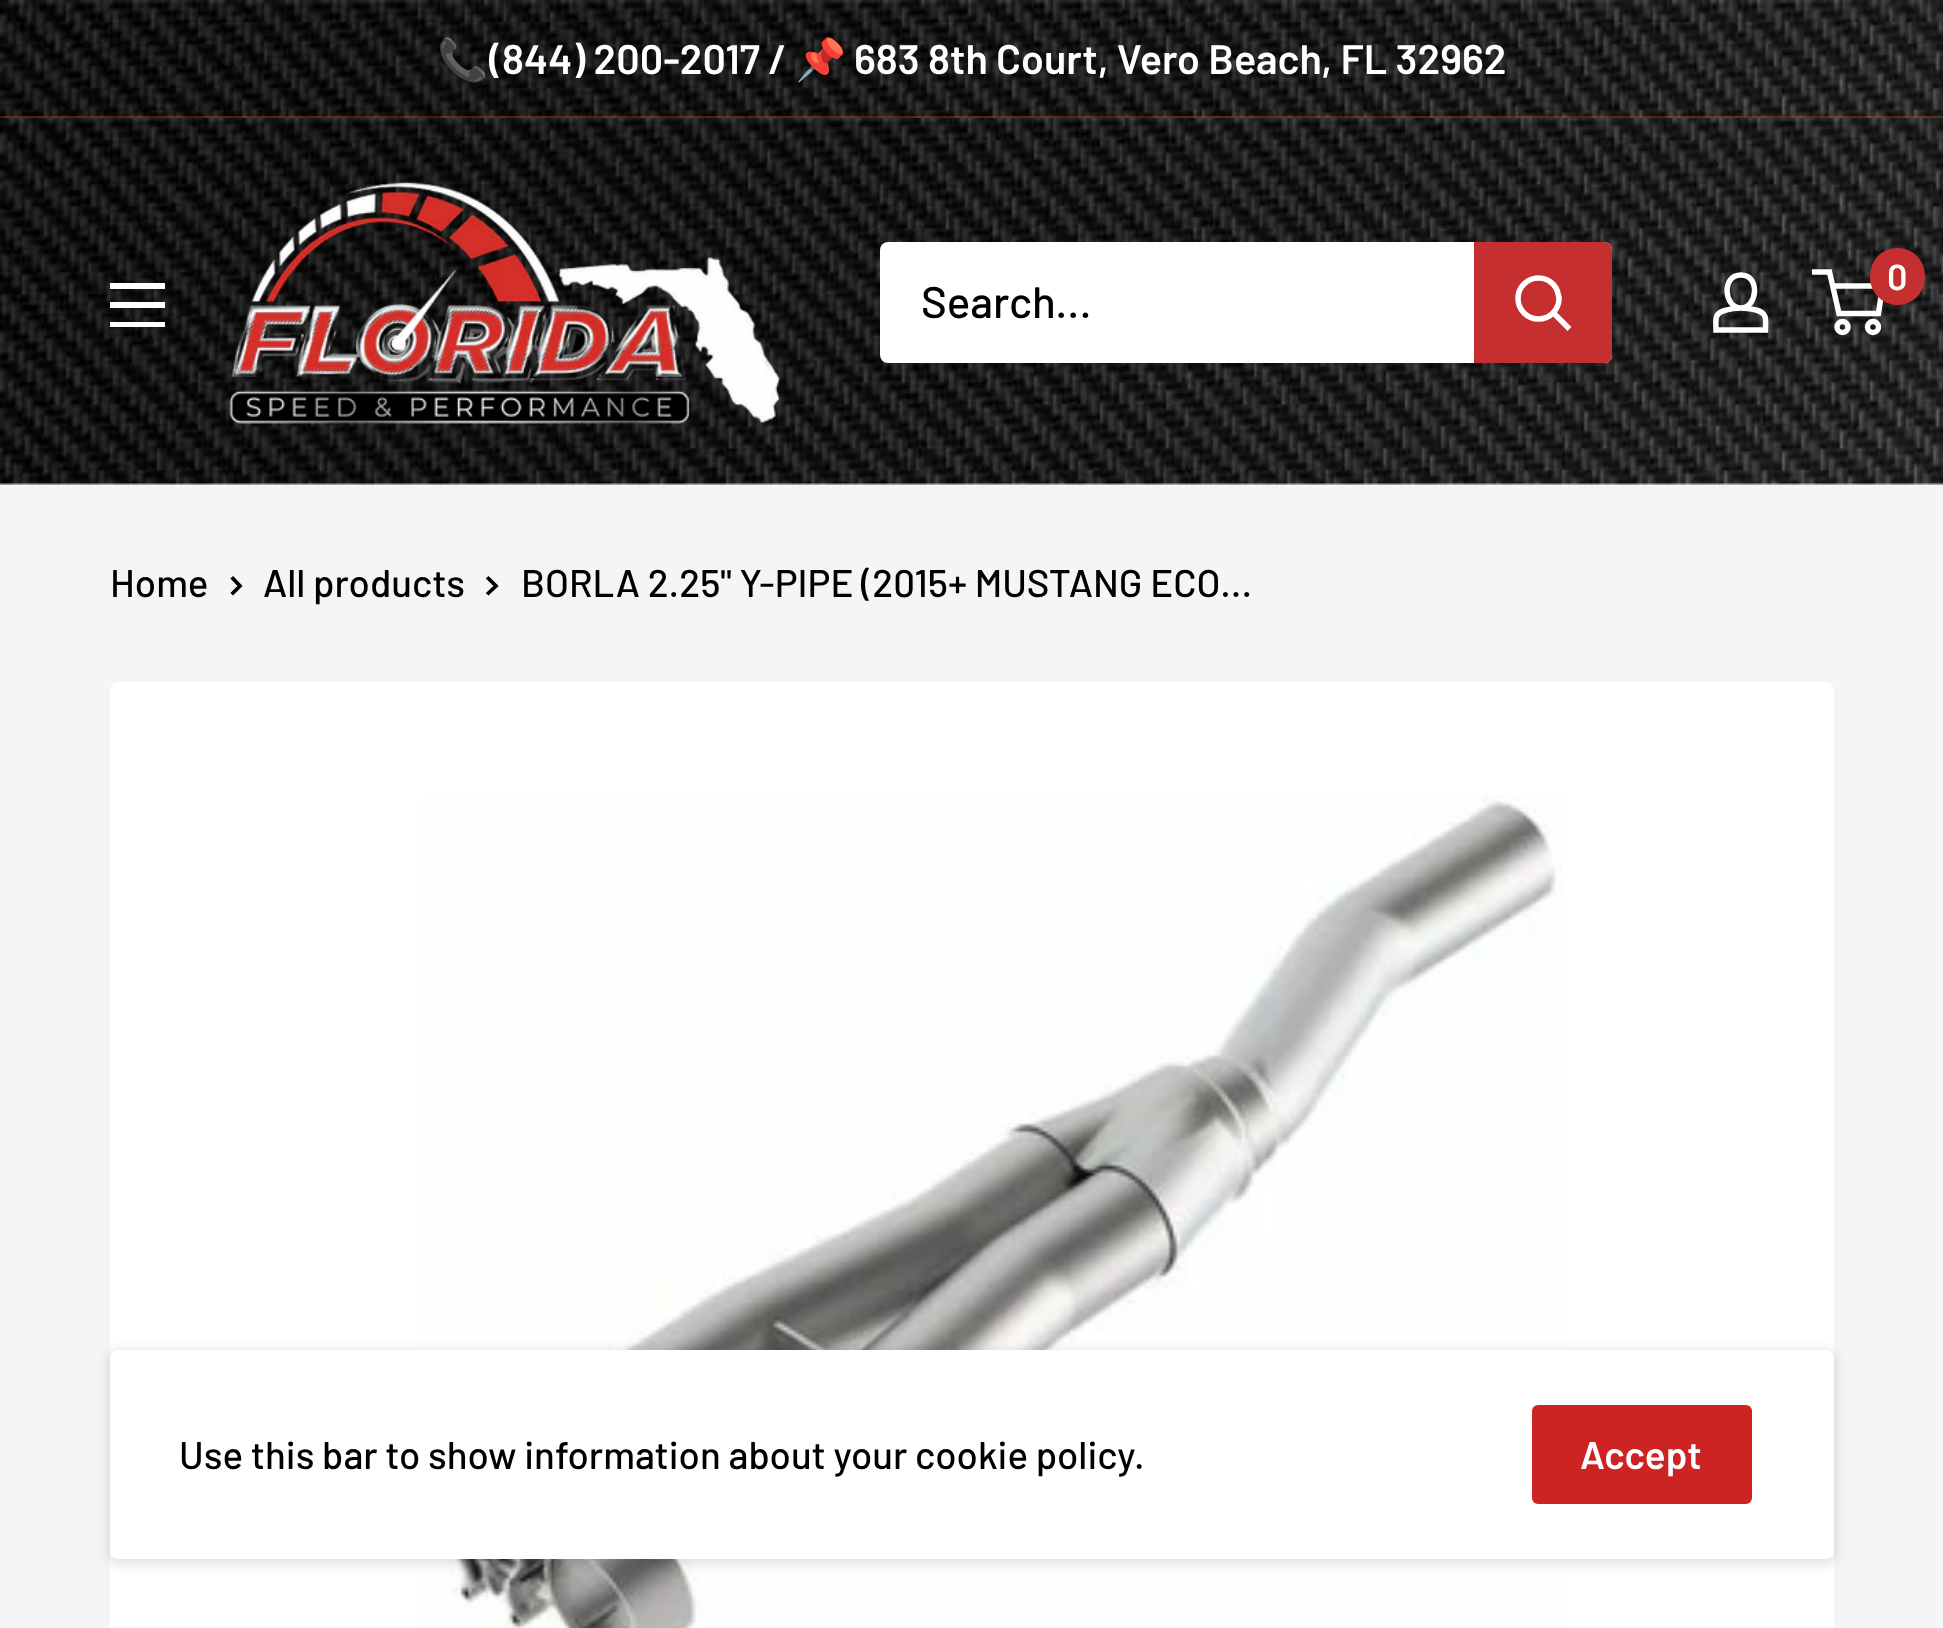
(async () => {
const canvas = document.querySelector("canvas")
canvas.width = 1943
canvas.height = 1628
const c = canvas.getContext("2d")
c.miterLimit = 4
c.fontKerning = "normal"
function T(s,x,y){c.fillText(s,x,y)}
function R(x,y,w,h){c.fillRect(x,y,w,h)}
function Q(x,y,w,h,r){c.beginPath();c.roundRect(x,y,w,h,r);c.fill()}
async function I(src,x,y,w,h){const img=new Image();img.src=src;await img.decode();c.drawImage(img,x,y,w,h)}
let path
c.fillStyle="#f3f5f6"
R(0,0,1943,1628)
await I("1.png",0,0,1943,118)
c.fillStyle="#e2641e4d"
R(0,116,1943,2)
c.font="bold 41.25px Noto Color Emoji"
c.fillStyle="#fff"
T("📞",437,74)
c.font="600 41.25px Barlow"
T("(844) 200-2017 /",489,74)
c.font="bold 41.25px Noto Color Emoji"
T("📌",795,74)
c.font="600 41.25px Barlow"
T("683 8th Court, Vero Beach, FL 32962",854,74)
await I("2.png",0,118,1943,367)
await I("3.png",229,182,551,242)
path = new Path2D("M1741 308c5 0 10 1 15 2c12 3.5 9.5 9.5 9.5 20h-49.5c0-11-2.5-17 10.5-20c4.5-1.5 9.5-2 14.5-2zm0 0c-17 0-20-33 0-33c19.5 0 16.5 33 0 33z")
c.strokeStyle="#fff"
c.lineWidth=5.5
c.stroke(path)
c.beginPath()
c.arc(1842.5,327,5.5,0,7)
c.stroke()
c.beginPath()
c.arc(1873,327,5.5,0,7)
c.stroke()
path = new Path2D("M1832.5 286h50l-4 27.5h-39.5l-9.5-41.5h-17.5")
c.stroke(path)
c.fillStyle="#c62f2f"
Q(1870,248,55,57,27.5)
c.font="600 36px Barlow"
c.fillStyle="#fff"
T("0",1887,290)
path = new Path2D("M110 322h55v5h-55zm0-39h55v6h-55zm0 19h55v6h-55z")
c.fill(path,"evenodd")
Q(880,242,732,121,8)
c.font="500 44px Barlow"
c.fillStyle="#000"
T("Search...",921,318)
c.fillStyle="#c62f2f"
c.beginPath()
c.roundRect(1474,242,138,121,[0,8,8,0])
c.fill()
path = new Path2D("M1567.5 327l-13.5-13.5")
c.lineCap="square"
c.stroke(path)
c.beginPath()
c.arc(1538.5,298.5,20.5,0,7)
c.stroke()
c.font="500 38.5px Barlow"
c.fillStyle="#000"
T("Home",110,597)
path = new Path2D("M233 578.5l7 7.5l-7 7")
c.strokeStyle="#000"
c.lineWidth=3.7
c.stroke(path)
T("All products",263,597)
path = new Path2D("M488.5 578.5l7.5 7.5l-7.5 7")
c.stroke(path)
T("BORLA 2.25\" Y-PIPE (2015+ MUSTANG ECO...",521,597)
c.fillStyle="#fff"
c.beginPath()
c.roundRect(111.5,683.5,1721,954,6.5)
c.fill()
c.strokeStyle="#fff"
c.lineWidth=3
c.stroke()
await I("4.png",422,795,1141,833)
c.fillStyle="#0000001a"
c.filter="blur(5.5px)"
c.beginPath()
c.roundRect(107,1350,1730,215,11)
c.fill()
c.filter="none"
c.fillStyle="#fff"
Q(110,1350,1724,209,8)
c.fillStyle="#000"
T("Use this bar to show information about your cookie policy.",179,1469)
c.fillStyle="#ce2323"
Q(1532,1405,220,99,6)
c.font="600 38.5px Barlow"
c.fillStyle="#fff"
T("Accept",1580,1469)
})()
